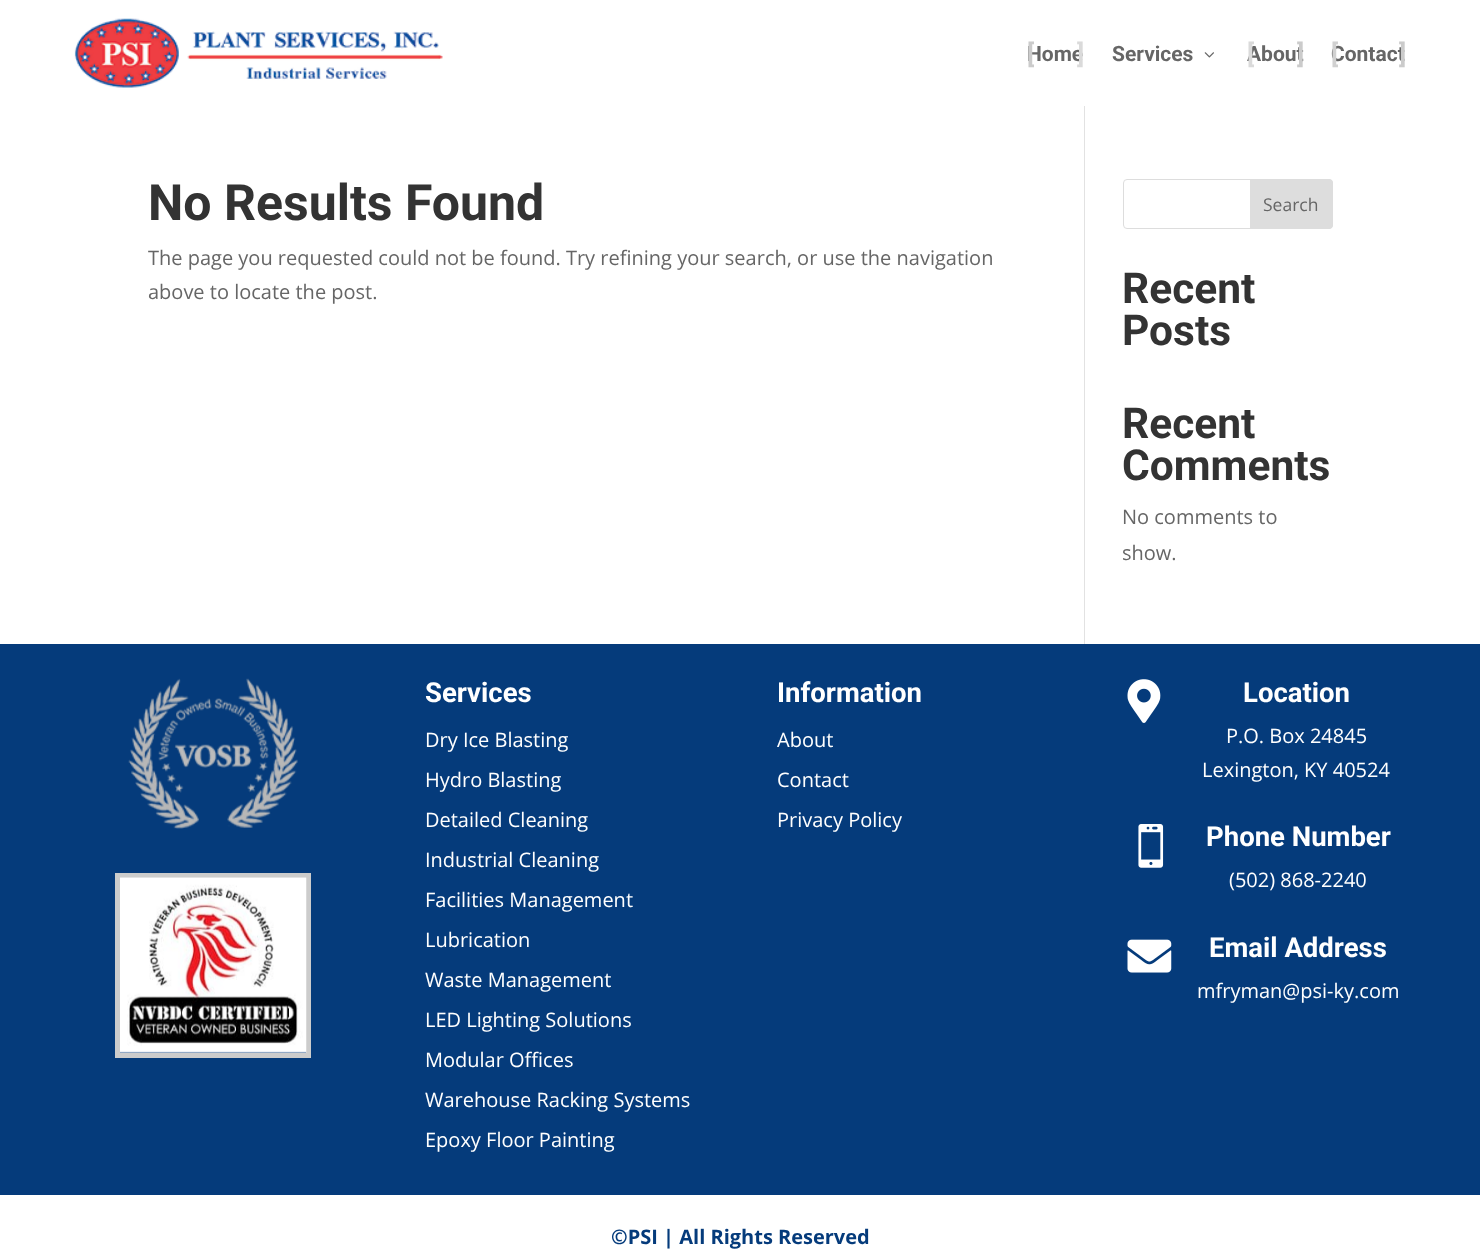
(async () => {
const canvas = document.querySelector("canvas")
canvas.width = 1480
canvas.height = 1253
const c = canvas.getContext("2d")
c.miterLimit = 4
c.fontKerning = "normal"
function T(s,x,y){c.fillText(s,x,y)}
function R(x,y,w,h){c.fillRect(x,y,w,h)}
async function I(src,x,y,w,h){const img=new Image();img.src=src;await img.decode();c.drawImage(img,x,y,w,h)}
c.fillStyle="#fff"
R(0,0,1480,1253)
await I("1.png",74,18,369,70)
c.font="bold 21px Roboto"
c.fillStyle="#666"
T("Home",1027,61)
c.font="bold 26px Roboto"
c.fillStyle="#cbcbcb"
T("[",1027,63)
c.fillStyle="#dadada"
T("]",1077,63)
c.font="bold 21px Roboto"
c.fillStyle="#666"
T("Services",1112,61)
await I("2.png",1204,52,10,6)
T("About",1247,61)
c.font="bold 26px Roboto"
c.fillStyle="#dadada"
T("[",1247,63)
c.fillStyle="#cbcbcb"
T("]",1297,63)
c.font="bold 21px Roboto"
c.fillStyle="#666"
T("Contact",1331,61)
c.font="bold 26px Roboto"
c.fillStyle="#d1d1d1"
T("[",1331,63)
c.fillStyle="#cbcbcb"
T("]",1399,63)
c.fillStyle="#e2e2e2"
R(1084,106,1,538)
c.font="bold 50px Roboto"
c.fillStyle="#333"
T("No Results Found",148,220)
c.font="20px Open Sans"
c.fillStyle="#666"
T("The page you requested could not be found. Try refining your search, or use the navigation",148,265)
T("above to locate the post.",148,299)
c.beginPath()
c.roundRect(1123.5,179.5,209,49,3.5)
c.strokeStyle="#ddd"
c.stroke()
c.fillStyle="#ddd"
c.beginPath()
c.roundRect(1250.5,179.5,82,49,[0,3.5,3.5,0])
c.fill()
c.stroke()
c.font="17.5px Open Sans"
c.fillStyle="#666"
T("Search",1263,211)
c.font="bold 42.5px Roboto"
c.fillStyle="#333"
T("Recent",1122,303)
T("Posts",1122,345)
T("Recent",1122,438)
T("Comments",1122,480)
c.font="20px Open Sans"
c.fillStyle="#666"
T("No comments to",1122,524)
T("show.",1122,560)
c.fillStyle="#053b7b"
R(0,644,1480,551)
await I("3.png",128,678,170,151)
c.strokeStyle="#ccc"
c.lineWidth=5
c.strokeRect(117.5,875.5,191,180)
await I("4.png",120,877,187,176)
c.font="bold 27.5px Roboto"
c.fillStyle="#fff"
T("Services",425,702)
c.font="20px Open Sans"
T("Dry Ice Blasting",425,747)
T("Hydro Blasting",425,787)
T("Detailed Cleaning",425,827)
T("Industrial Cleaning",425,867)
T("Facilities Management",425,907)
T("Lubrication",425,947)
T("Waste Management",425,987)
T("LED Lighting Solutions",425,1027)
T("Modular Offices",425,1067)
T("Warehouse Racking Systems",425,1107)
T("Epoxy Floor Painting",425,1147)
c.font="bold 27.5px Roboto"
T("Information",777,702)
c.font="20px Open Sans"
T("About",777,747)
T("Contact",777,787)
T("Privacy Policy",777,827)
await I("5.png",1127,679,34,44)
c.font="bold 27.5px Roboto"
T("Location",1243,702)
c.font="20px Open Sans"
T("P.O. Box 24845",1226,743)
T("Lexington, KY 40524",1202,777)
await I("6.png",1138,824,26,44)
c.font="bold 27.5px Roboto"
T("Phone Number",1206,846)
c.font="20px Open Sans"
T("(502) 868-2240",1229,887)
await I("7.png",1127,939,45,34)
c.font="bold 27.5px Roboto"
T("Email Address",1209,957)
c.font="20px Open Sans"
T("mfryman@psi-ky.com",1197,998)
c.font="bold 20px Open Sans"
c.fillStyle="#053b7b"
T("©PSI | All Rights Reserved",611,1244)
})()
